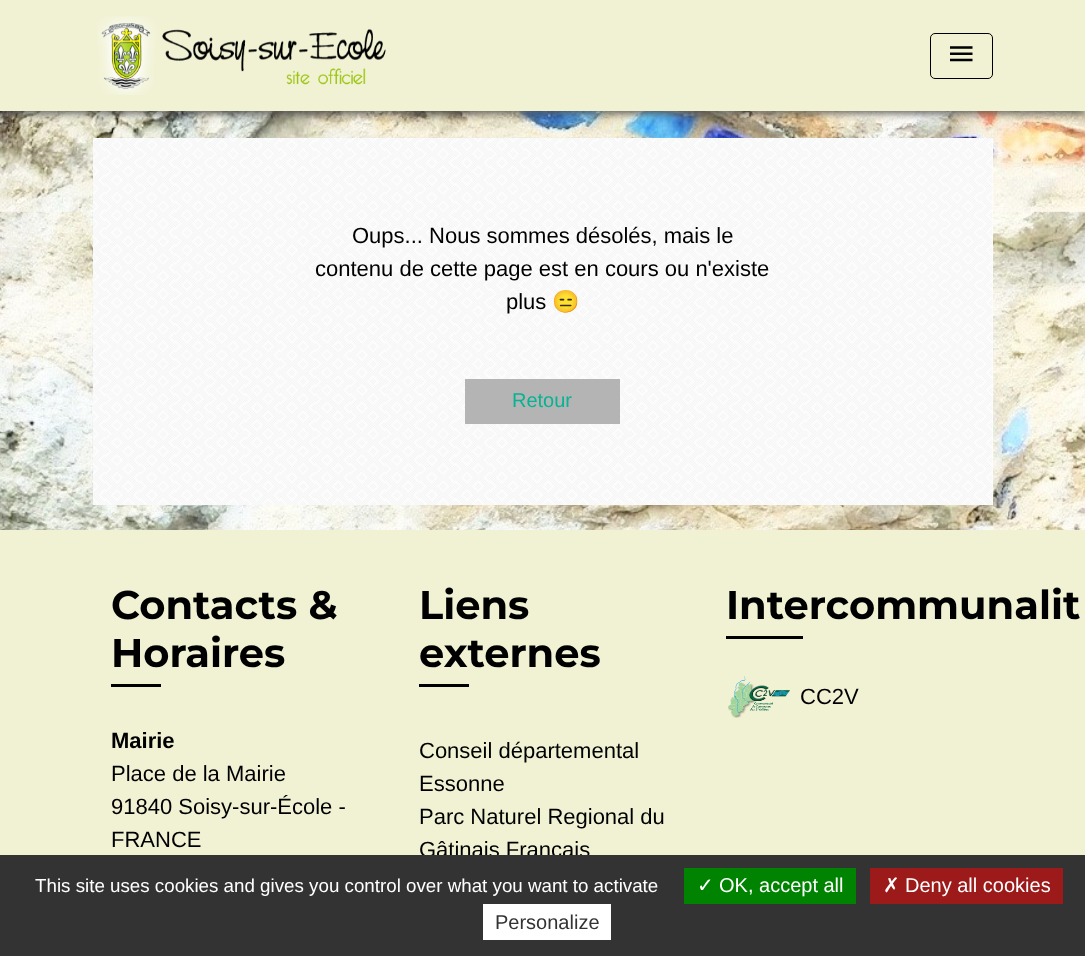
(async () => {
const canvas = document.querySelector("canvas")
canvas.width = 1085
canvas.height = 956
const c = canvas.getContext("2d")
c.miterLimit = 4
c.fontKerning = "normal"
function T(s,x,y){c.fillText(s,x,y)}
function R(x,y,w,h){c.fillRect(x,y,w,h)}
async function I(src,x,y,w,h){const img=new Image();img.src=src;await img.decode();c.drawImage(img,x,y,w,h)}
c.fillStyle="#fff"
R(0,0,1085,956)
await I("1.png",0,111,1085,419)
c.fillStyle="#535353"
c.filter="blur(4px)"
c.beginPath()
c.rect(0,1,1085,112)
c.fill()
c.filter="none"
c.fillStyle="#f1f2d4"
R(0,0,1085,111)
await I("2.png",97,16,289,79)
c.beginPath()
c.roundRect(930.5,33.5,62,45,4.5)
c.strokeStyle="#000"
c.stroke()
await I("3.png",950,46,23,16)
c.fillStyle="#fff"
R(93,138,900,367)
await I("4.png",92,137,901,368)
c.font="22px Liberation Sans"
c.fillStyle="#000"
T("Oups... Nous sommes désolés, mais le",352,243)
T("contenu de cette page est en cours ou n'existe",315,276)
T("plus",506,309)
c.font="22px Noto Color Emoji"
T("😑",552,309)
c.fillStyle="#b4b4b4"
R(465,379,155,45)
c.font="20px Liberation Sans"
c.fillStyle="#07b392"
T("Retour",512,407)
c.fillStyle="#f1f2d4"
R(0,530,1085,325)
c.font="bold 40px Montserrat"
c.fillStyle="#000"
T("Contacts &",111,619)
T("Horaires",111,667)
R(111,684,50,3)
c.font="bold 22px Liberation Sans"
T("Mairie",111,748)
c.font="22px Liberation Sans"
T("Place de la Mairie",111,781)
T("91840 Soisy-sur-École -",111,814)
T("FRANCE",111,847)
c.font="bold 40px Montserrat"
T("Liens",419,619)
T("externes",419,667)
R(419,684,50,3)
c.font="22px Liberation Sans"
T("Conseil départemental",419,758)
T("Essonne",419,791)
T("Parc Naturel Regional du",419,824)
T("Gâtinais Français",419,857)
c.font="bold 40px Montserrat"
T("Intercommunalit",726,619)
R(726,636,77,3)
await I("5.png",728,676,62,42)
c.font="22px Liberation Sans"
T("CC2V",800,704)
c.fillStyle="#333"
R(0,855,1085,101)
c.font="18.75px Liberation Sans"
c.fillStyle="#fff"
T("This site uses cookies and gives you control over what you want to activate",35,892)
c.fillStyle="#008300"
R(684,868,172,36)
c.font="20px DejaVu Sans"
c.fillStyle="#fff"
T("✓",697,892)
c.font="20px Liberation Sans"
T("OK, accept all",719,892)
c.fillStyle="#9c1a1a"
R(870,868,193,36)
c.font="20px DejaVu Sans"
c.fillStyle="#fff"
T("✗",883,892)
c.font="20px Liberation Sans"
T("Deny all cookies",905,892)
R(483,904,128,36)
c.fillStyle="#333"
T("Personalize",495,929)
})()
